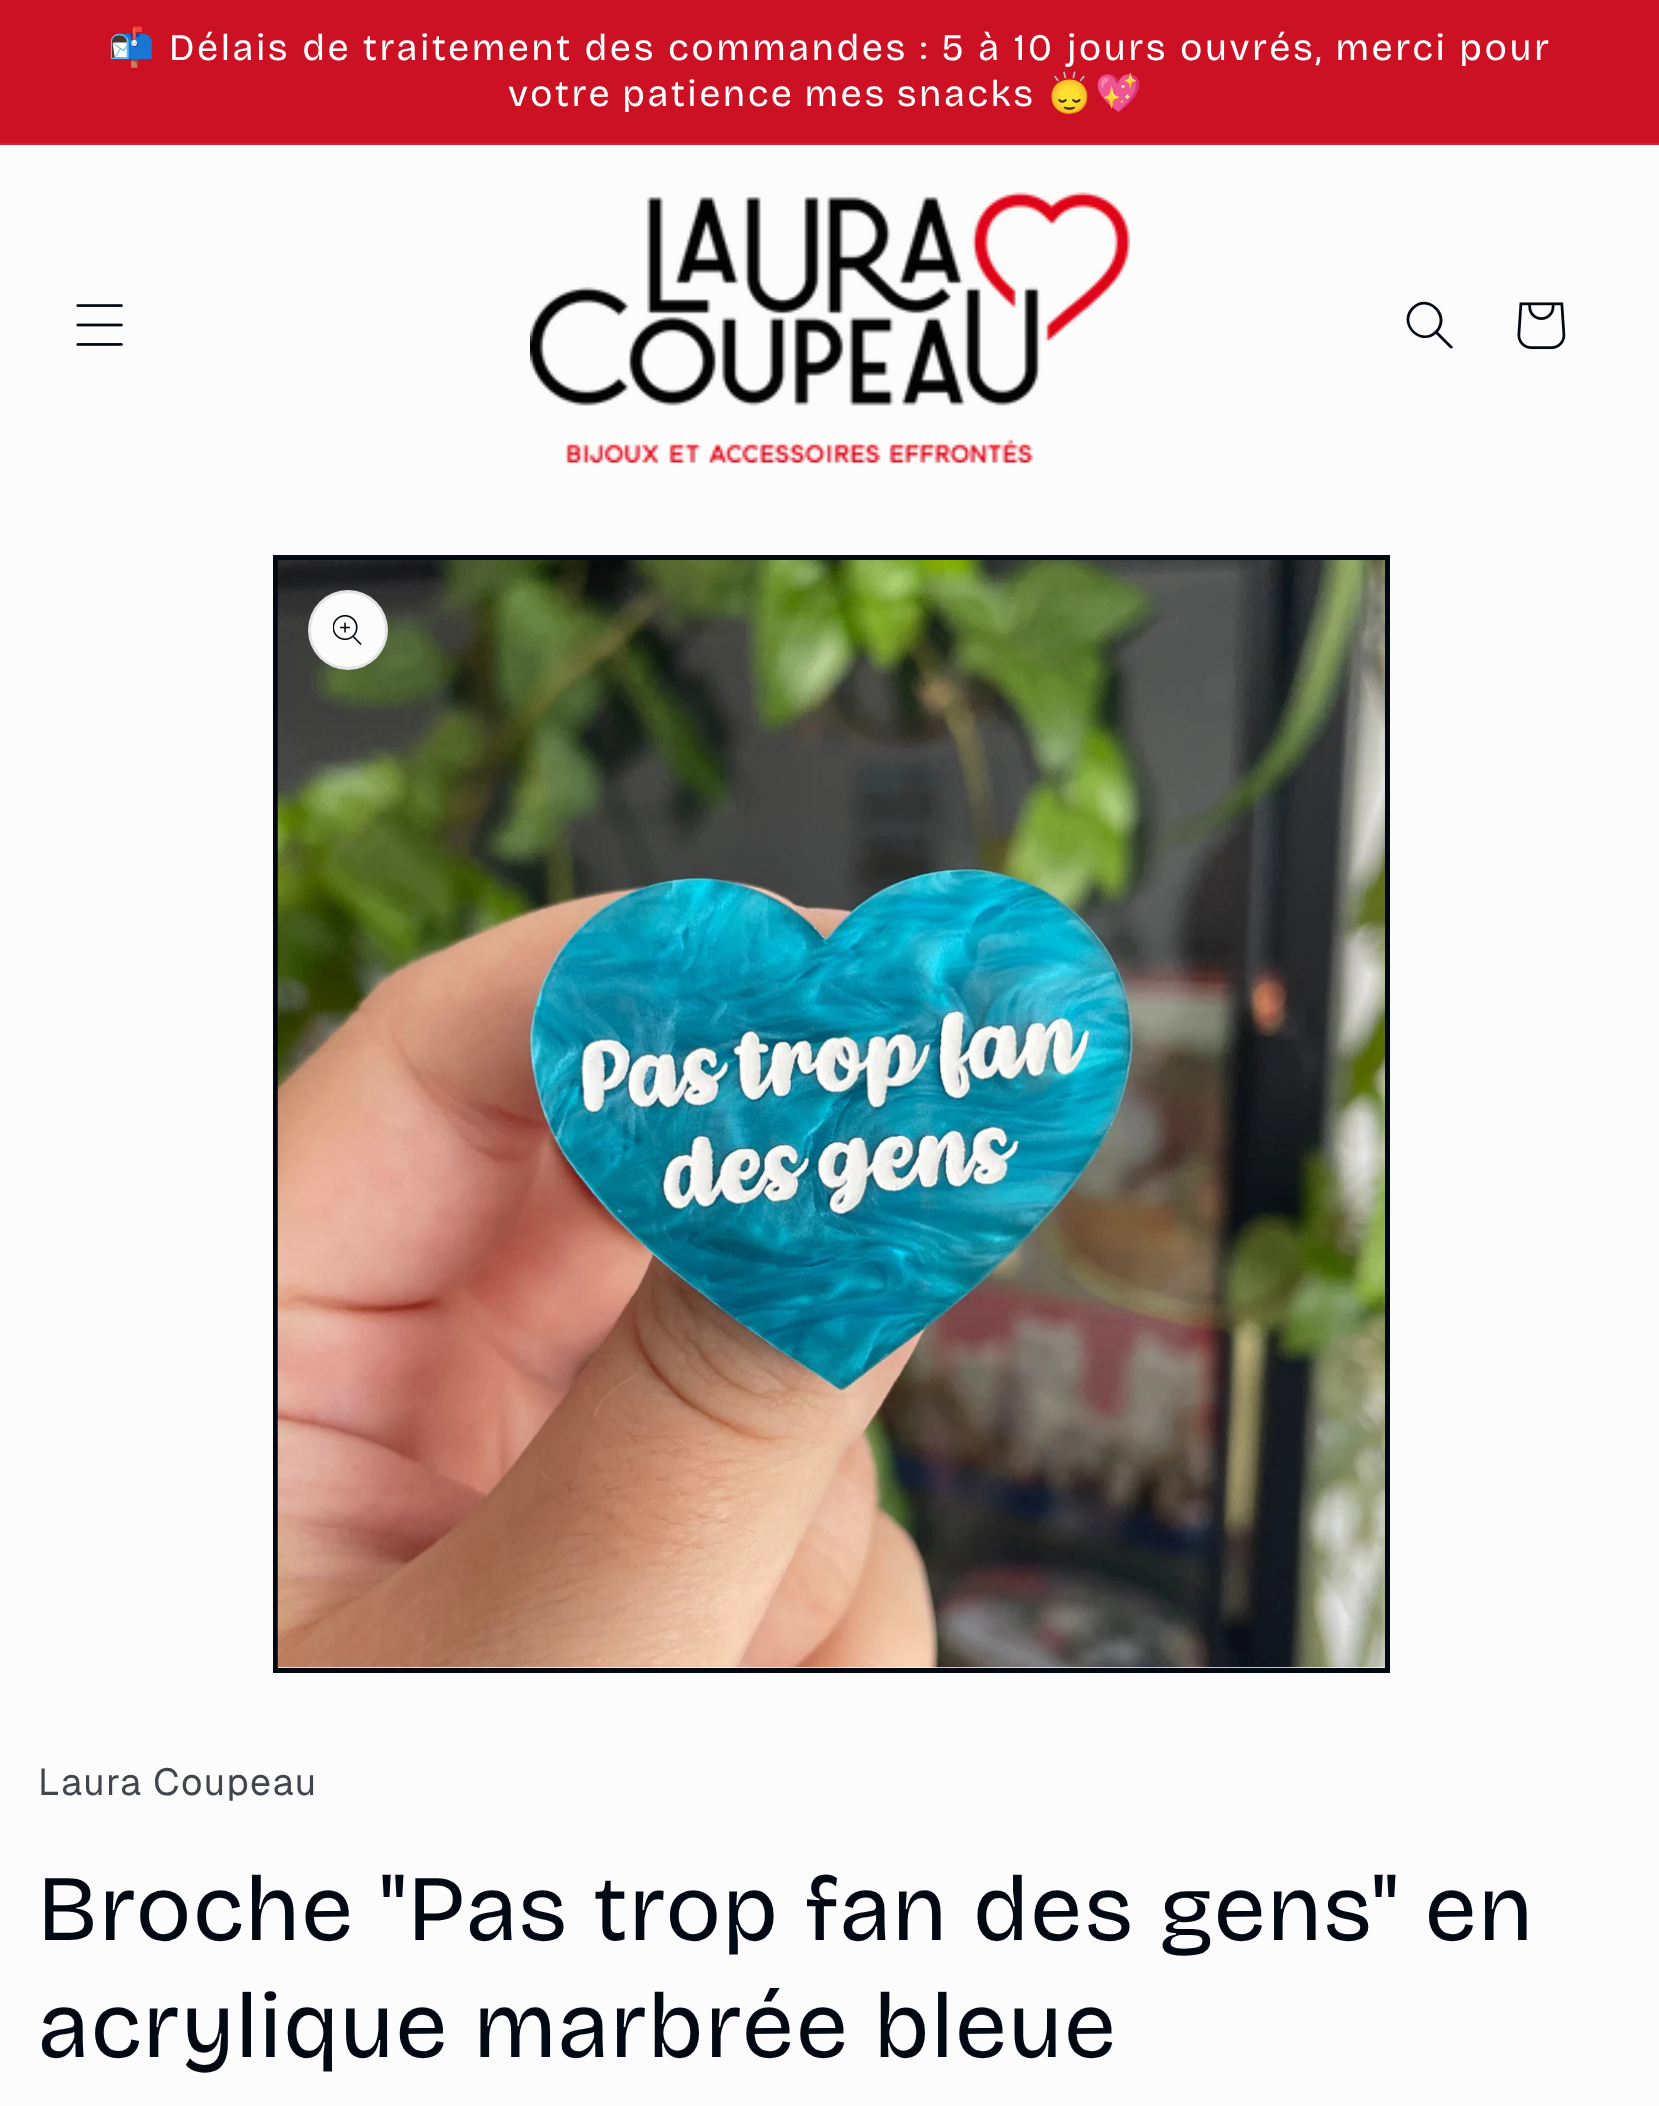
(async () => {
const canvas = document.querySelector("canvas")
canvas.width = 1659
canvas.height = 2106
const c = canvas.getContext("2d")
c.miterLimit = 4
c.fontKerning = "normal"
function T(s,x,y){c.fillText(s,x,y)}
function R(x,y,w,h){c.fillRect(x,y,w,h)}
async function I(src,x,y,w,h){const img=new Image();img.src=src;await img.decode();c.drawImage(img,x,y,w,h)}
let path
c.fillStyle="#fcfcfc"
R(0,0,1659,2106)
c.fillStyle="#cd1125"
R(0,0,1659,143)
c.fillStyle="#d12436"
R(0,143,1659,2)
c.letterSpacing="2.5px"
c.font="37.5px Noto Color Emoji"
c.fillStyle="#fff"
T("📬",108,60)
c.font="37.5px 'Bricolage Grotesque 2'"
T("Délais de traitement des commandes : 5 à 10 jours ouvrés, merci pour",169,60)
c.wordSpacing="-2px"
T("votre patience mes snacks",508,106)
c.wordSpacing="0px"
c.font="37.5px Noto Color Emoji"
T("🙂‍↕️💖",1046,106)
await I("1.png",76,304,47,42)
await I("2.png",530,192,600,271)
c.fillStyle="#020912"
path = new Path2D("M1435 331c-14 14-35-8-21-22c14-14 35 8 21 22m1 3c-17 14-40-11-24-27c16-16 41 8 26 25l15 15c0 1-2 2-3 1z")
c.fill(path,"evenodd")
await I("3.png",1517,302,49,48)
c.strokeStyle="#020912"
c.lineWidth=5
c.strokeRect(275.5,557.5,1112,1113)
await I("4.png",277,560,1108,1108)
c.fillStyle="#fcfcfc"
c.beginPath()
c.arc(348,630,40,0,7)
c.fill()
c.beginPath()
c.arc(348,630,38.5,0,7)
c.strokeStyle="#0209121a"
c.lineWidth=3
c.stroke()
await I("5.png",333,614,29,31)
c.letterSpacing="1.5px"
c.font="37.5px Geist"
c.fillStyle="#41464d"
T("Laura Coupeau",38,1795)
c.letterSpacing="1.9px"
c.font="93.75px Bricolage Grotesque"
c.fillStyle="#020912"
T("Broche \"Pas trop fan des gens\" en",38,1940)
T("acrylique marbrée bleue",38,2057)
})()
